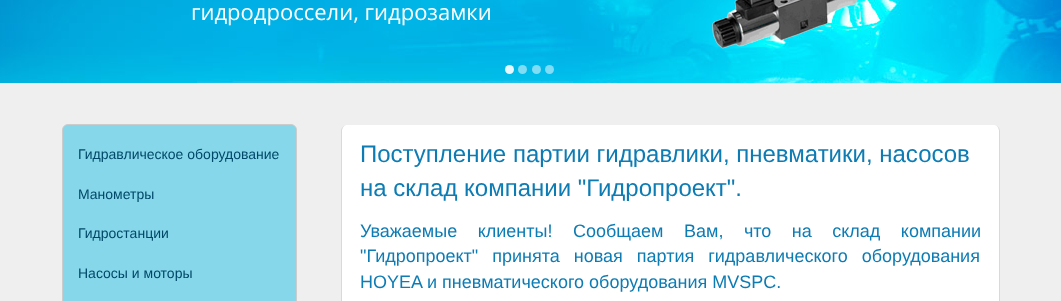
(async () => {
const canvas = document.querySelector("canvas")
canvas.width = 1061
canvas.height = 301
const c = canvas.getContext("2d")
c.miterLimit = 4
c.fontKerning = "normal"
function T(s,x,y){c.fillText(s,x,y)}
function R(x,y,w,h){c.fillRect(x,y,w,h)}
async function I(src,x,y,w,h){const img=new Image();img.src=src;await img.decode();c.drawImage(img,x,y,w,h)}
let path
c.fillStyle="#efefef"
R(0,0,1061,301)
await I("1.png",0,0,1061,83)
await I("2.png",712,0,146,49)
c.font="22px Open Sans"
c.fillStyle="#fff"
T("гидродроссели, гидрозамки",191,20)
c.fillStyle="#ffffffe6"
c.beginPath()
c.arc(509.5,69.5,4.5,0,7)
c.fill()
c.fillStyle="#ffffff80"
c.beginPath()
c.arc(522.5,69.5,4.5,0,7)
c.fill()
c.beginPath()
c.arc(536.5,69.5,4.5,0,7)
c.fill()
c.beginPath()
c.arc(549.5,69.5,4.5,0,7)
c.fill()
c.fillStyle="#86d7ea"
c.beginPath()
c.roundRect(62.5,124.5,234,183,5.5)
c.fill()
c.strokeStyle="#ccc"
c.stroke()
c.font="14px Liberation Sans"
c.fillStyle="#004868"
T("Гидравлическое оборудование",78,159)
T("Манометры",78,199)
T("Гидростанции",78,238)
T("Насосы и моторы",78,278)
c.fillStyle="#fff"
path = new Path2D("M347 125h647c3 0 5 3 5 6v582c0 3-2 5-5 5h-647c-3 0-5-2-5-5v-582c0-3 2-6 5-6z")
c.fill(path)
c.fillStyle="#d9d9d9"
path = new Path2D("M1000 131c0-3-3-6-6-6c3 0 5 3 5 6v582c0 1-1 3-1 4c1-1 2-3 2-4z")
c.fill(path)
path = new Path2D("M341 131v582c0 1 1 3 2 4c-1-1-1-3-1-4v-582c0-3 2-6 5-6c-3 0-6 3-6 6z")
c.fill(path)
c.font="24px Liberation Sans"
c.fillStyle="#0d7cb4"
T("Поступление партии гидравлики, пневматики, насосов",360,162)
T("на склад компании \"Гидропроект\".",360,196)
c.wordSpacing="15.5px"
c.font="18px Liberation Sans"
T("Уважаемые клиенты! Сообщаем Вам, что на склад компании",360,237)
c.wordSpacing="9px"
T("\"Гидропроект\" принята новая партия гидравлического оборудования",360,262)
c.wordSpacing="0px"
T("HOYEA и пневматического оборудования MVSPC.",360,288)
})()
